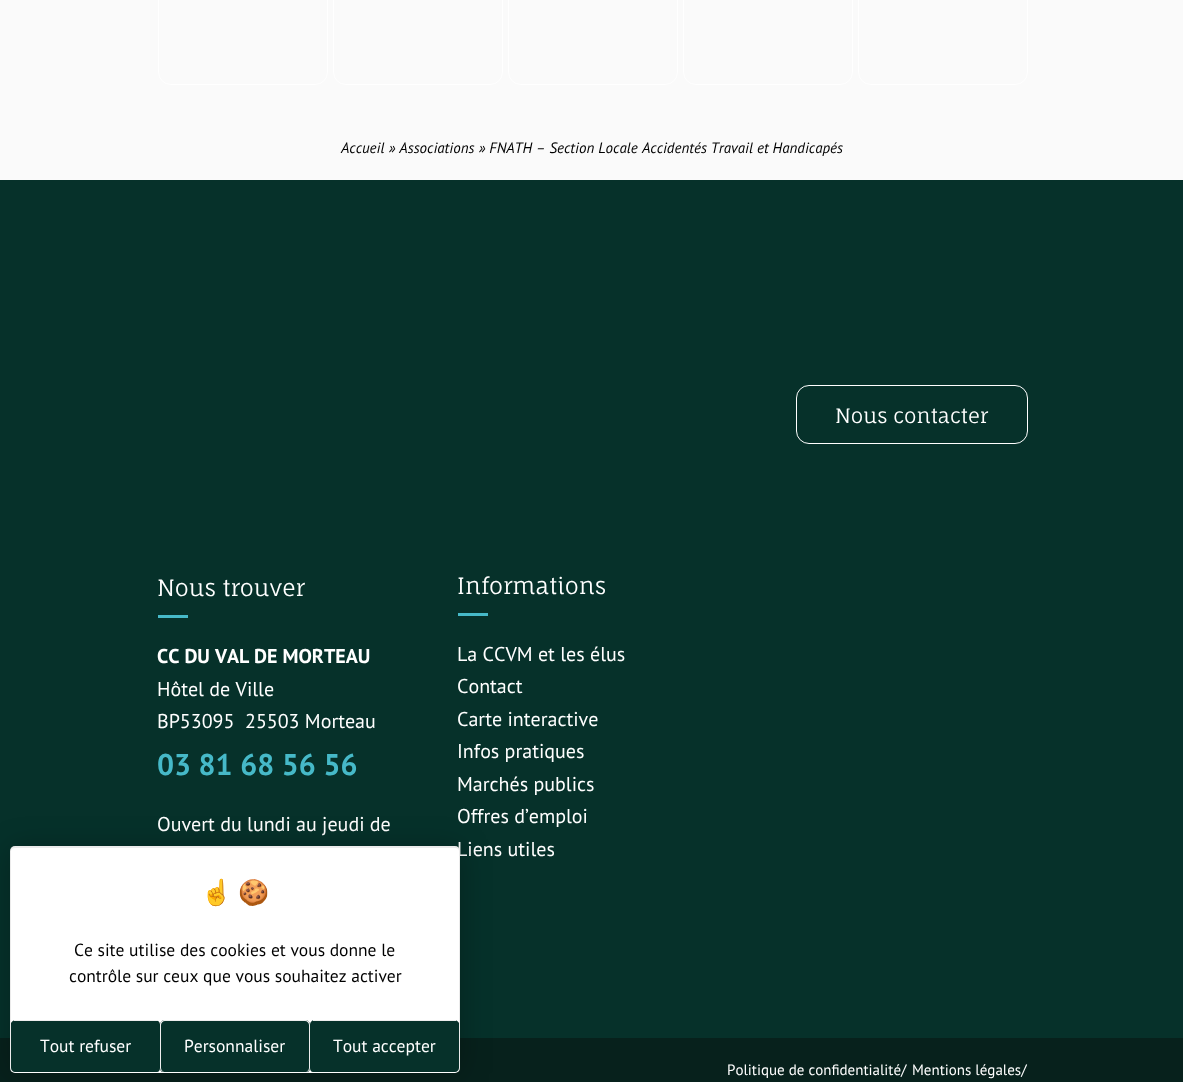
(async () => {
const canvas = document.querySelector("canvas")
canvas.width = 1183
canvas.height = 1082
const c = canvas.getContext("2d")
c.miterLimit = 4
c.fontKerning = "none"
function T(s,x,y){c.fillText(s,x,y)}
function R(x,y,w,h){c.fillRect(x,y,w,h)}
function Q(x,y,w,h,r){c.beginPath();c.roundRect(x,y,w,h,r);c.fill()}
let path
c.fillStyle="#fafafa"
R(0,0,1183,1082)
c.beginPath()
c.roundRect(158.5,-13.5,169,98,12.5)
c.strokeStyle="#fff"
c.stroke()
c.beginPath()
c.roundRect(333.5,-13.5,169,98,12.5)
c.stroke()
c.beginPath()
c.roundRect(508.5,-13.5,169,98,12.5)
c.stroke()
c.beginPath()
c.roundRect(683.5,-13.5,169,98,12.5)
c.stroke()
c.beginPath()
c.roundRect(858.5,-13.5,169,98,12.5)
c.stroke()
c.font="italic 15px PT Sans"
c.fillStyle="#000"
T("Accueil » Associations » FNATH – Section Locale",341,153)
T("Accidentés Travail et Handicapés",642,153)
c.fillStyle="#06312a"
R(0,180,1183,858)
c.beginPath()
c.roundRect(796.5,385.5,231,58,12.5)
c.stroke()
c.font="20px Fauna One"
c.fillStyle="#fff"
T("Nous contacter",835,423)
c.font="22.5px Fauna One"
T("Nous trouver",157,596)
c.fillStyle="#46b9c8"
R(158,615,30,3)
c.font="bold 20px PT Sans"
c.fillStyle="#fff"
T("CC DU VAL",157,663)
T("DE MORTEAU",254,663)
c.font="20px PT Sans"
T("Hôtel de Ville",157,696)
T("BP53095",157,728)
T("25503 Morteau",245,728)
c.font="bold 30px PT Sans"
c.fillStyle="#46b9c8"
T("03 81 68 56 56",157,775)
c.font="20px PT Sans"
c.fillStyle="#fff"
T("Ouvert du lundi au jeudi de",157,831)
c.font="22.5px Fauna One"
T("Informations",457,594)
c.fillStyle="#46b9c8"
R(458,613,30,3)
c.font="20px PT Sans"
c.fillStyle="#fff"
T("La CCVM et les élus",457,661)
T("Contact",457,693)
T("Carte interactive",457,726)
T("Infos pratiques",457,758)
T("Marchés publics",457,791)
T("Offres d’emploi",457,823)
T("Liens utiles",457,856)
c.fillStyle="#07211c"
R(0,1038,1183,44)
c.font="15px PT Sans"
c.fillStyle="#fff"
T("Politique de confidentialité/",727,1075)
T("Mentions légales/",912,1075)
c.fillStyle="#00000040"
c.filter="blur(15px)"
c.beginPath()
c.roundRect(11,848,450,226,5)
c.fill()
c.filter="none"
c.fillStyle="#fff"
Q(10,846,450,227,5)
c.fillStyle="#00000014"
path = new Path2D("M15 846h440c3 0 5 2 5 5v217c0 2-2 4-5 4h-440c-3 0-5-2-5-4v-217c0-3 2-5 5-5zm0 2h440c2 0 4 1 4 3v217c0 2-2 4-4 4h-440c-2 0-4-2-4-4v-217c0-2 2-3 4-3z")
c.fill(path,"evenodd")
c.font="bold 25px Noto Color Emoji"
c.fillStyle="#000"
T("☝️",201,901)
T("🍪",238,901)
c.font="17.5px PT Sans"
T("Ce site utilise des cookies et vous donne le",74,956)
T("contrôle sur ceux que vous souhaitez activer",69,982)
c.fillStyle="#06312a"
path = new Path2D("M16 1020h139c3 0 5 2 5 5v43c0 2-1 4-3 4h-142c-2 0-4-2-4-4v-45c1-2 3-3 5-3z")
c.fill(path)
c.fillStyle="#eee"
R(14,1020,144,1)
c.fillStyle="#fff"
T("Tout refuser",40,1052)
c.fillStyle="#06312a"
path = new Path2D("M165 1020h140c3 0 5 2 5 5v43c0 2-1 4-3 4h-144c-2 0-3-2-3-4v-43c0-3 2-5 5-5z")
c.fill(path)
c.fillStyle="#eee"
path = new Path2D("M165 1020h140c3 0 5 2 5 5v43c0 2-2 4-5 4h-140c-3 0-5-2-5-4v-43c0-3 2-5 5-5zm0 1h140c2 0 4 2 4 4v43c0 2-2 4-4 4h-140c-2 0-4-2-4-4v-43c0-2 2-4 4-4z")
c.fill(path,"evenodd")
c.fillStyle="#fff"
T("Personnaliser",184,1052)
c.fillStyle="#06312a"
path = new Path2D("M315 1020h139c2 0 4 1 5 3v45c0 2-2 4-4 4h-142c-2 0-3-2-3-4v-43c0-3 2-5 5-5z")
c.fill(path)
c.fillStyle="#eee"
R(313,1020,143,1)
c.fillStyle="#fff"
T("Tout accepter",333,1052)
})()
